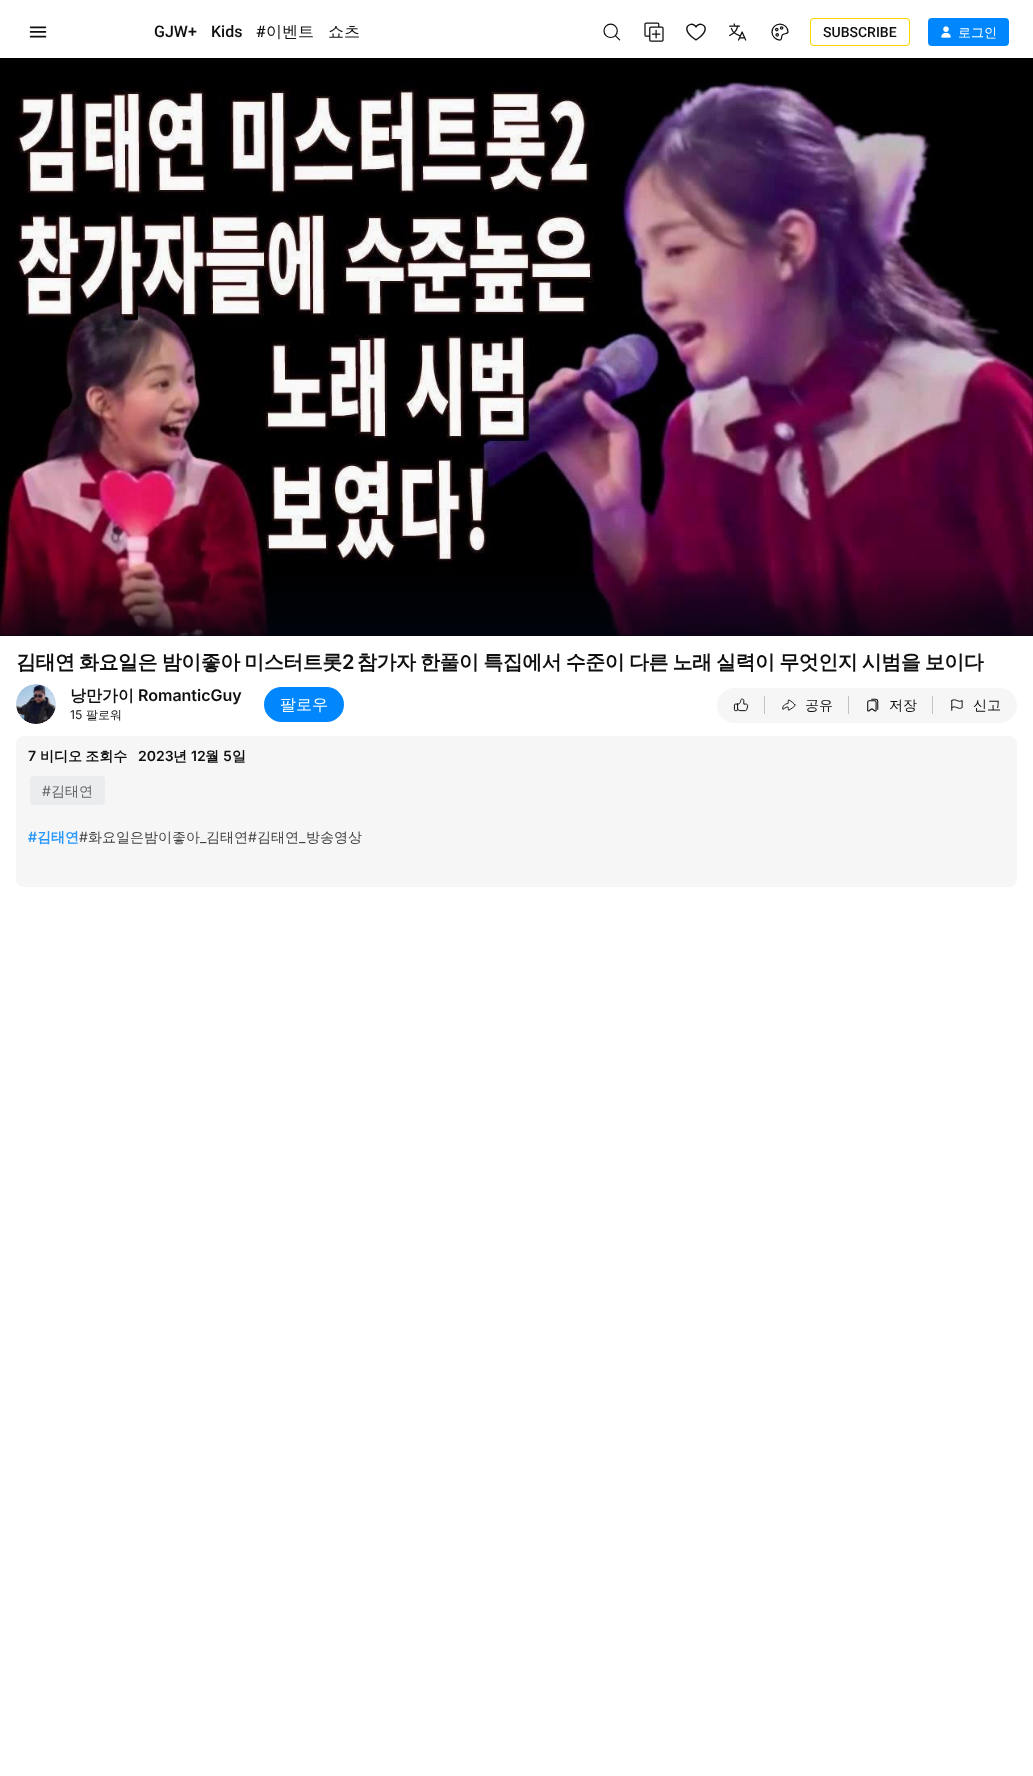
(async () => {
const canvas = document.querySelector("canvas")
canvas.width = 1033
canvas.height = 1776
const c = canvas.getContext("2d")
c.miterLimit = 4
c.fontKerning = "normal"
function T(s,x,y){c.fillText(s,x,y)}
function R(x,y,w,h){c.fillRect(x,y,w,h)}
function Q(x,y,w,h,r){c.beginPath();c.roundRect(x,y,w,h,r);c.fill()}
async function I(src,x,y,w,h){const img=new Image();img.src=src;await img.decode();c.drawImage(img,x,y,w,h)}
let gradient
c.fillStyle="#fff"
R(0,0,1033,1776)
await I("1.png",29,26,18,12)
c.font="500 16px Roboto"
c.fillStyle="#0f0f0f"
T("GJW+",154,37)
T("Kids",211,37)
T("#",256,37)
c.font="500 16px WenQuanYi Zen Hei"
T("이벤트",266,37)
T("쇼츠",328,37)
await I("2.png",603,23,18,18)
await I("3.png",644,22,20,20)
await I("4.png",686,23,20,18)
await I("5.png",729,23,18,18)
await I("6.png",771,23,18,18)
gradient = c.createLinearGradient(828,64,892,-.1)
gradient.addColorStop(.01,"#f90")
gradient.addColorStop(.01,"#ffd600")
gradient.addColorStop(1,"#ffd601")
c.fillStyle = gradient
Q(810,18,100,28,4)
c.fillStyle="#fff"
Q(811,19,98,26,3)
c.font="500 14px Roboto"
c.fillStyle="#0f0f0f"
T("SUBSCRIBE",823,37)
c.fillStyle="#0187fd"
Q(928,18,81,28,4)
await I("7.png",941,26,10,12)
c.font="500 13px WenQuanYi Zen Hei"
c.fillStyle="#fff"
T("로그인",958,37)
c.fillStyle="#000"
R(0,58,1033,578)
await I("8.png",0,82,1033,554)
gradient = c.createLinearGradient(517,636,517,58)
gradient.addColorStop(0,"#010511b8")
gradient.addColorStop(.12,"#01051100")
c.fillStyle = gradient
R(0,569,1033,67)
c.letterSpacing="-0.5px"
c.wordSpacing="-0.9px"
c.font="bold 20px WenQuanYi Zen Hei"
c.fillStyle="#0f0f0f"
T("김태연 화요일은 밤이좋아 미스터트롯",16,669)
c.wordSpacing="0px"
c.font="600 20px Inter"
T("2",342,669)
c.wordSpacing="-0.9px"
c.font="bold 20px WenQuanYi Zen Hei"
T("참가자 한풀이 특집에서 수준이 다른 노래 실력이 무엇인지 시범을 보이다",357,669)
await I("9.png",16,684,40,40)
c.letterSpacing="0px"
c.wordSpacing="0px"
c.font="bold 16px WenQuanYi Zen Hei"
T("낭만가이",70,701)
c.font="600 16px Inter"
T("RomanticGuy",138,701)
c.font="12px Inter"
T("15",70,719)
c.font="500 12px WenQuanYi Zen Hei"
T("팔로워",86,719)
c.fillStyle="#0187fd"
Q(264,687,80,35,17.5)
c.font="500 16px WenQuanYi Zen Hei"
c.fillStyle="#fff"
T("팔로우",280,710)
c.fillStyle="#f6f6f6"
c.beginPath()
c.roundRect(717,688,48,35,[17.5,0,0,17.5])
c.fill()
await I("10.png",733,698,16,14)
c.fillStyle="#c4c4c4"
R(764,696,1,18)
c.fillStyle="#f6f6f6"
R(765,688,168,35)
await I("11.png",782,699,14,12)
c.font="500 14px WenQuanYi Zen Hei"
c.fillStyle="#0f0f0f"
T("공유",805,710)
c.fillStyle="#c4c4c4"
R(848,696,1,18)
await I("12.png",867,698,12,14)
c.fillStyle="#0f0f0f"
T("저장",889,710)
c.fillStyle="#c4c4c4"
R(932,696,1,18)
c.fillStyle="#f6f6f6"
c.beginPath()
c.roundRect(933,688,84,35,[0,17.5,17.5,0])
c.fill()
await I("13.png",951,699,12,12)
c.fillStyle="#0f0f0f"
T("신고",973,710)
c.fillStyle="#f6f6f6"
Q(16,736,1001,151,8)
c.font="600 14px Inter"
c.fillStyle="#0f0f0f"
T("7",28,761)
c.wordSpacing="-1px"
c.font="bold 14px WenQuanYi Zen Hei"
T("비디오 조회수",40,761)
c.wordSpacing="0px"
c.font="600 14px Inter"
T("2023",138,761)
c.font="bold 14px WenQuanYi Zen Hei"
T("년",173,761)
c.font="600 14px Inter"
T("12",191,761)
c.font="bold 14px WenQuanYi Zen Hei"
T("월",205,761)
c.font="600 14px Inter"
T("5",223,761)
c.font="bold 14px WenQuanYi Zen Hei"
T("일",232,761)
c.fillStyle="#ebeced"
Q(30,776,75,29,4)
c.font="14px Inter"
c.fillStyle="#636363"
T("#",42,796)
c.font="500 14px WenQuanYi Zen Hei"
T("김태연",51,796)
c.font="600 14px Inter"
c.fillStyle="#2797fc"
T("#",28,842)
c.font="bold 14px WenQuanYi Zen Hei"
T("김태연",37,842)
c.font="14px Inter"
c.fillStyle="#424242"
T("#",79,842)
c.font="500 14px WenQuanYi Zen Hei"
T("화요일은밤이좋아",88,842)
c.font="14px Inter"
T("_",200,842)
c.font="500 14px WenQuanYi Zen Hei"
T("김태연",206,842)
c.font="14px Inter"
T("#",248,842)
c.font="500 14px WenQuanYi Zen Hei"
T("김태연",257,842)
c.font="14px Inter"
T("_",299,842)
c.font="500 14px WenQuanYi Zen Hei"
T("방송영상",306,842)
})()
